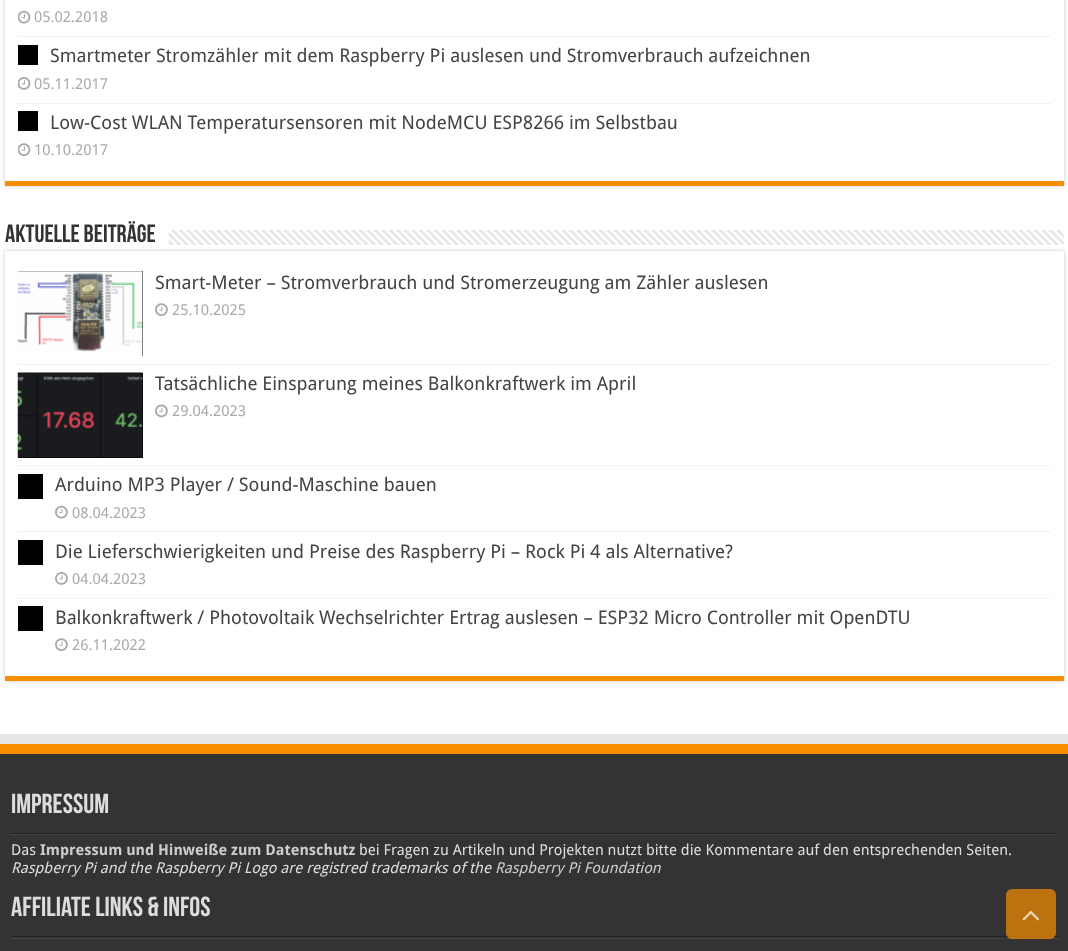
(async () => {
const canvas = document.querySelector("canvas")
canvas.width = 1068
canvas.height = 951
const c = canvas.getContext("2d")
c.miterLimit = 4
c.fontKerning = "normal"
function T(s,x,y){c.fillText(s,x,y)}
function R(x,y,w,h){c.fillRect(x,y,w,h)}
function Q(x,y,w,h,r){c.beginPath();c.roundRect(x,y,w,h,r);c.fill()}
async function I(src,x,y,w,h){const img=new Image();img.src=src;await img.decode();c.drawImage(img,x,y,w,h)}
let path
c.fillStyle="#fff"
R(0,0,1068,951)
c.fillStyle="#cacaca"
c.filter="blur(2px)"
c.beginPath()
c.rect(5,-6,1059,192)
c.fill()
c.filter="none"
c.fillStyle="#fff"
R(5,0,1059,181)
c.fillStyle="#f88d00"
R(5,181,1059,5)
c.fillStyle="#f2f2f2"
R(18,36,1033,1)
await I("1.png",18,10,13,14)
c.font="15px Droid Sans"
c.fillStyle="#aaa"
T("05.02.2018",34,22)
c.fillStyle="#f2f2f2"
R(18,103,1033,1)
c.fillStyle="#000"
R(18,45,20,20)
c.font="18.75px Droid Sans"
c.fillStyle="#444"
T("Smartmeter Stromzähler mit dem Raspberry Pi auslesen und Stromverbrauch aufzeichnen",50,62)
await I("2.png",18,77,13,13)
c.font="15px Droid Sans"
c.fillStyle="#aaa"
T("05.11.2017",34,89)
c.fillStyle="#000"
R(18,111,20,20)
c.font="18.75px Droid Sans"
c.fillStyle="#444"
T("Low-Cost WLAN Temperatursensoren mit NodeMCU ESP8266 im Selbstbau",50,129)
await I("3.png",18,143,13,13)
c.font="15px Droid Sans"
c.fillStyle="#aaa"
T("10.10.2017",34,155)
c.font="bold 25px Bebas Neue"
c.fillStyle="#333"
T("Aktuelle Beiträge",5,242)
c.fillStyle="#cacaca"
c.filter="blur(2px)"
c.beginPath()
c.rect(5,251,1059,430)
c.fill()
c.filter="none"
await I("4.png",168,230,896,15)
c.fillStyle="#fff"
R(5,251,1059,425)
c.fillStyle="#f88d00"
R(5,676,1059,5)
c.fillStyle="#f2f2f2"
R(18,364,1033,1)
c.fillStyle="#000"
R(18,271,125,85)
await I("5.png",17,271,126,85)
c.font="18.75px Droid Sans"
c.fillStyle="#444"
T("Smart-Meter – Stromverbrauch und Stromerzeugung am Zähler auslesen",155,289)
await I("6.png",155,303,13,13)
c.font="15px Droid Sans"
c.fillStyle="#aaa"
T("25.10.2025",172,315)
c.fillStyle="#f2f2f2"
R(18,465,1033,1)
c.fillStyle="#000"
R(18,373,125,85)
await I("7.png",17,372,126,86)
c.font="18.75px Droid Sans"
c.fillStyle="#444"
T("Tatsächliche Einsparung meines Balkonkraftwerk im April",155,390)
await I("8.png",155,404,13,14)
c.font="15px Droid Sans"
c.fillStyle="#aaa"
T("29.04.2023",172,416)
c.fillStyle="#f2f2f2"
R(18,531,1033,1)
c.fillStyle="#000"
R(18,474,25,25)
c.font="18.75px Droid Sans"
c.fillStyle="#444"
T("Arduino MP3 Player / Sound-Maschine bauen",55,491)
await I("9.png",55,505,13,14)
c.font="15px Droid Sans"
c.fillStyle="#aaa"
T("08.04.2023",72,518)
c.fillStyle="#f2f2f2"
R(18,598,1033,1)
c.fillStyle="#000"
R(18,540,25,25)
c.font="18.75px Droid Sans"
c.fillStyle="#444"
T("Die Lieferschwierigkeiten und Preise des Raspberry Pi – Rock Pi 4 als Alternative?",55,558)
await I("10.png",55,572,13,13)
c.font="15px Droid Sans"
c.fillStyle="#aaa"
T("04.04.2023",72,584)
c.fillStyle="#000"
R(18,606,25,25)
c.font="18.75px Droid Sans"
c.fillStyle="#444"
T("Balkonkraftwerk / Photovoltaik Wechselrichter Ertrag auslesen – ESP32 Micro Controller mit OpenDTU",55,624)
await I("6.png",55,638,13,13)
c.font="15px Droid Sans"
c.fillStyle="#aaa"
T("26.11.2022",72,650)
c.fillStyle="#e6e6e6"
path = new Path2D("M0 734v10h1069v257v-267z")
c.fill(path)
c.fillStyle="#333"
R(0,754,1068,197)
c.fillStyle="#f88d00"
R(0,744,1068,10)
c.fillStyle="#222"
R(11,833,1047,1)
c.font="bold 27.5px Bebas Neue"
c.fillStyle="#ddd"
T("Impressum",11,813)
c.fillStyle="#444"
R(11,834,1047,1)
c.font="15px Droid Sans"
c.fillStyle="#ddd"
T("Das",11,855)
c.font="bold 15px Droid Sans"
c.fillStyle="#ccc"
T("Impressum und Hinweiße zum Datenschutz",40,855)
c.font="15px Droid Sans"
c.fillStyle="#ddd"
T("bei Fragen zu Artikeln und Projekten nutzt bitte die Kommentare auf den entsprechenden Seiten.",359,855)
c.font="italic 15px Droid Sans"
T("Raspberry Pi and the Raspberry Pi Logo are registred trademarks of the",11,873)
c.fillStyle="#ccc"
T("Raspberry Pi Foundation",495,873)
c.fillStyle="#222"
R(11,936,1047,1)
c.font="bold 27.5px Bebas Neue"
c.fillStyle="#ddd"
T("Affiliate Links & Infos",11,916)
c.fillStyle="#444"
R(11,938,1047,1)
c.fillStyle="#f88d00b3"
Q(1006,889,50,50,6)
await I("11.png",1022,910,18,11)
})()
